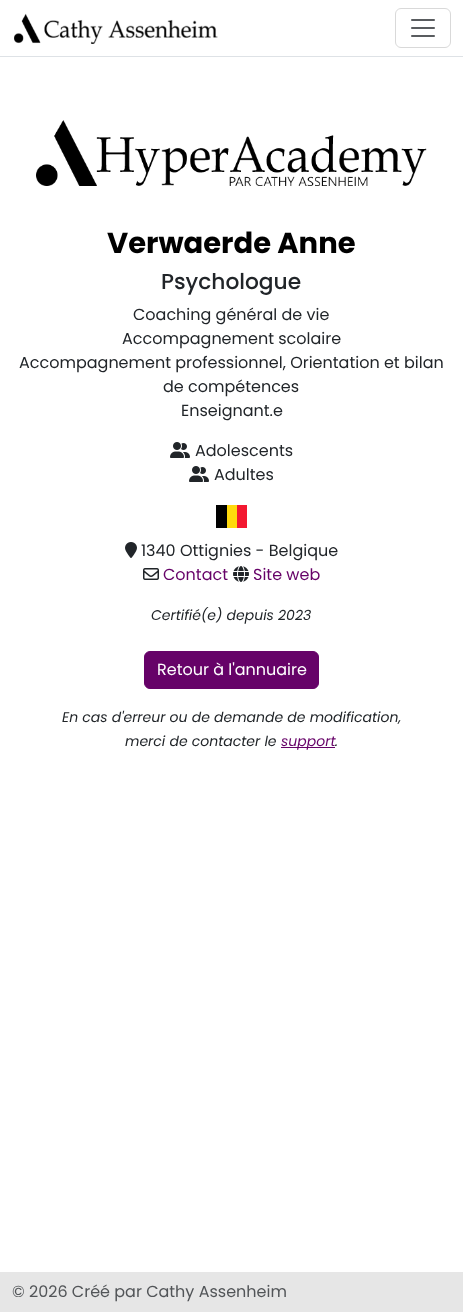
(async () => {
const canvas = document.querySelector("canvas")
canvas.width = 463
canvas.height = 1312
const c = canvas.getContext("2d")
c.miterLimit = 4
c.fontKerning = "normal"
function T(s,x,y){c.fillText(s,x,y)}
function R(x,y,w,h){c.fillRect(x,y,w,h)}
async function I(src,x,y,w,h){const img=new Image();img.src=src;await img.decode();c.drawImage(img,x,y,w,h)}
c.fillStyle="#fff"
R(0,0,463,1312)
c.fillStyle="#dee2e6"
R(0,56,463,1)
await I("1.png",14,13,204,31)
c.beginPath()
c.roundRect(395.5,8.5,55,39,5.5)
c.strokeStyle="#d9d9d9"
c.stroke()
await I("2.png",411,19,24,18)
await I("3.png",36,120,391,66)
c.font="bold 29px Poppins"
c.fillStyle="#000"
T("Verwaerde Anne",107,253)
c.font="500 21.75px Poppins"
c.fillStyle="#212529"
T("Psychologue",161,289)
c.font="16px Poppins"
T("Coaching général de vie",133,320)
T("Accompagnement scolaire",122,344)
T("Accompagnement professionnel, Orientation et bilan",19,368)
T("de compétences",163,392)
T("Enseignant.e",181,416)
await I("4.png",170,442,20,16)
T("Adolescents",195,456)
await I("4.png",189,466,20,16)
T("Adultes",214,480)
c.fillStyle="#000"
R(216,505,11,23)
c.fillStyle="#ffd90c"
R(227,505,10,23)
c.fillStyle="#f31830"
R(237,505,10,23)
await I("5.png",125,542,12,16)
c.fillStyle="#212529"
T("1340 Ottignies - Belgique",141,556)
await I("6.png",143,568,16,12)
c.fillStyle="#660268"
T("Contact",163,580)
await I("7.png",233,566,16,16)
T("Site web",253,580)
c.font="italic 14px Poppins"
c.fillStyle="#212529"
T("Certifié(e) depuis 2023",151,620)
c.fillStyle="#660268"
c.beginPath()
c.roundRect(144.5,651.5,174,37,5.5)
c.fill()
c.strokeStyle="#660268"
c.stroke()
c.font="16px Poppins"
c.fillStyle="#fff"
T("Retour à l'annuaire",157,675)
c.font="italic 14px Poppins"
c.fillStyle="#212529"
T("En cas d'erreur ou de demande de modification,",62,722)
T("merci de contacter le",125,746)
c.fillStyle="#660268"
R(281,747,54,1)
T("support",281,746)
c.fillStyle="#212529"
T(".",335,746)
c.fillStyle="#e6e6e6"
R(0,1272,463,40)
c.font="16px Poppins"
c.fillStyle="#525558"
T("© 2026 Créé par Cathy Assenheim",12,1297)
})()
